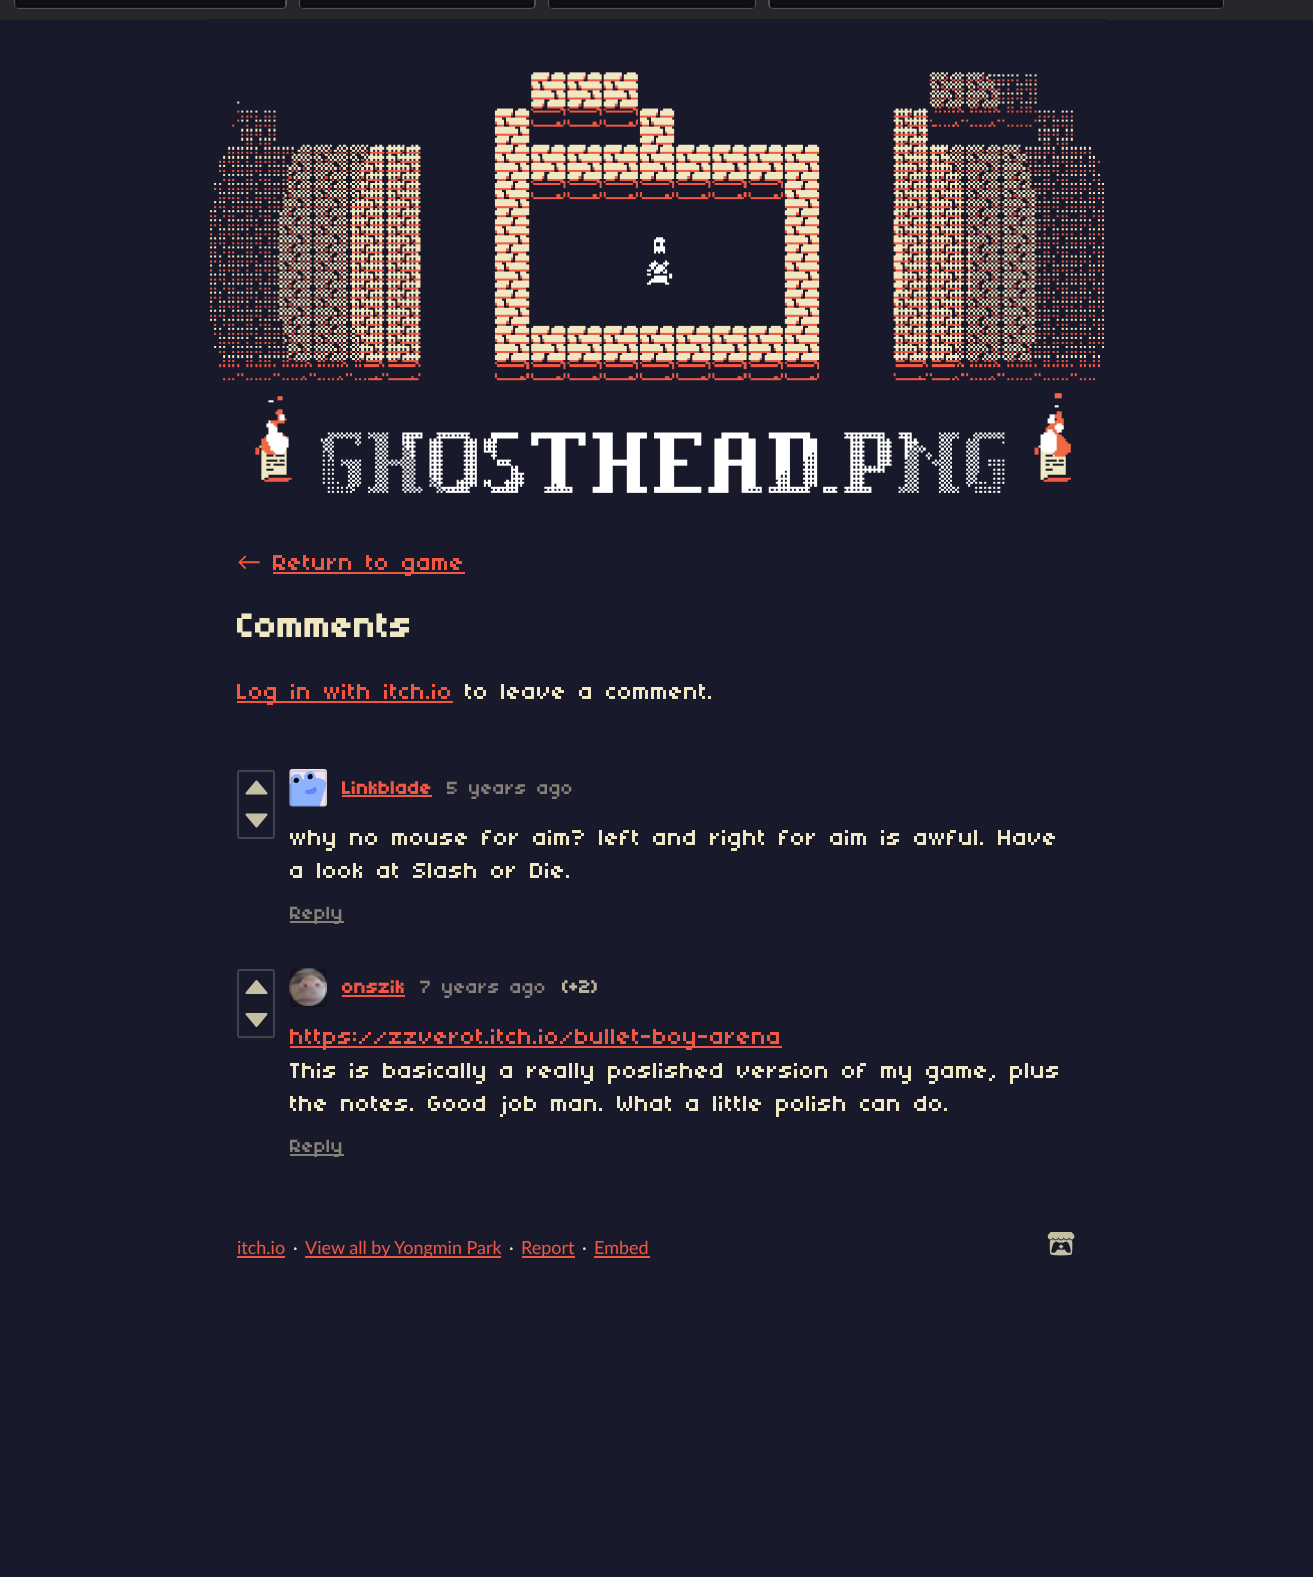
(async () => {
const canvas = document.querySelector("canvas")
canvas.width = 1313
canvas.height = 1577
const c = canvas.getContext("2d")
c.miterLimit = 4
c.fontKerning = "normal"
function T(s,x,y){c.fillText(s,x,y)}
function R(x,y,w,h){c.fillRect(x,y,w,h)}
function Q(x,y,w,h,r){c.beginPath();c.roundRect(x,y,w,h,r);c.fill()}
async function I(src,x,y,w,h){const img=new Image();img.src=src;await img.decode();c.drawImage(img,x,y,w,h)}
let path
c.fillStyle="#19192c"
R(0,0,1313,1577)
c.fillStyle="#27272b"
R(0,0,1313,20)
c.beginPath()
c.roundRect(15,-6,271,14,4)
c.strokeStyle="#525255"
c.lineWidth=2
c.stroke()
c.fillStyle="#00000099"
Q(15,-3,270,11,3)
c.beginPath()
c.roundRect(16,-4,268,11,2)
c.strokeStyle="#0a0a0a80"
c.stroke()
c.beginPath()
c.roundRect(300,-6,235,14,4)
c.strokeStyle="#525255"
c.stroke()
Q(300,-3,234,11,3)
c.beginPath()
c.roundRect(301,-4,232,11,2)
c.strokeStyle="#0a0a0a80"
c.stroke()
c.beginPath()
c.roundRect(549,-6,206,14,4)
c.strokeStyle="#525255"
c.stroke()
Q(549,-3,206,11,3)
c.beginPath()
c.roundRect(550,-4,204,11,2)
c.strokeStyle="#0a0a0a80"
c.stroke()
c.beginPath()
c.roundRect(769,-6,454,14,4)
c.strokeStyle="#525255"
c.stroke()
Q(770,-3,453,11,3)
c.beginPath()
c.roundRect(771,-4,451,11,2)
c.strokeStyle="#0a0a0a80"
c.stroke()
await I("1.png",207,19,900,474)
c.font="24px Lato"
c.fillStyle="#f05844"
T("←",237,570)
R(273,572,192,2)
c.font="24px '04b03'"
T("Return to game",273,570)
c.font="bold 36px '04b03'"
c.fillStyle="#f0e8c2"
T("Comments",237,637)
c.fillStyle="#f05844"
R(237,701,216,2)
c.font="24px '04b03'"
T("Log in with itch.io",237,699)
c.fillStyle="#f0e8c2"
T("to leave a comment.",465,699)
c.beginPath()
c.roundRect(238,771,36,67,2)
c.strokeStyle="#44424a"
c.stroke()
c.fillStyle="#c5bfa4"
path = new Path2D("M246.5 793.5l10-12l10 12z")
c.fill(path)
c.strokeStyle="#c5bfa4"
c.lineJoin="round"
c.stroke(path)
path = new Path2D("M246.5 814.5l10 12l10-12z")
c.fill(path)
c.stroke(path)
c.fillStyle="#141423"
Q(290,770,37,37,3)
await I("2.png",289,769,38,38)
c.beginPath()
c.roundRect(291,771,35,35,2)
c.strokeStyle="#0000001a"
c.lineJoin="miter"
c.stroke()
c.font="bold 19.5px '04b03'"
c.fillStyle="#f05844"
T("Linkblade",342,794)
R(342,795,90,2)
c.font="19.5px '04b03'"
c.fillStyle="#858177"
T("5 years ago",447,794)
c.font="24px '04b03'"
c.fillStyle="#f0e8c2"
T("why no mouse for aim? left and right for aim is awful. Have",290,845)
T("a look at Slash or Die.",290,878)
c.fillStyle="#858177"
R(290,921,54,2)
c.font="19.5px '04b03'"
T("Reply",290,919)
c.beginPath()
c.roundRect(238,970,36,67,2)
c.strokeStyle="#44424a"
c.stroke()
c.fillStyle="#c5bfa4"
path = new Path2D("M246.5 993l10-12l10 12z")
c.fill(path)
c.strokeStyle="#c5bfa4"
c.lineJoin="round"
c.stroke(path)
path = new Path2D("M246.5 1014l10 12l10-12z")
c.fill(path)
c.stroke(path)
c.fillStyle="#141423"
Q(290,969,37,38,3)
await I("3.png",289,968,38,38)
c.beginPath()
c.roundRect(291,970,35,36,2)
c.strokeStyle="#0000001a"
c.lineJoin="miter"
c.stroke()
c.font="bold 19.5px '04b03'"
c.fillStyle="#f05844"
T("onszik",342,993)
R(342,995,63,2)
c.font="19.5px '04b03'"
c.fillStyle="#858177"
T("7 years ago",420,993)
c.font="bold 19.5px '04b03'"
c.fillStyle="#bab49d"
T("(+2)",562,993)
c.fillStyle="#f05844"
R(290,1046,492,2)
c.font="24px '04b03'"
T("https://zzverot.itch.io/bullet-boy-arena",290,1044)
c.fillStyle="#f0e8c2"
T("This is basically a really poslished version of my game, plus",290,1078)
T("the notes. Good job man. What a little polish can do.",290,1111)
c.fillStyle="#858177"
R(290,1154,54,2)
c.font="19.5px '04b03'"
T("Reply",290,1152)
c.font="18px Lato"
c.fillStyle="#f05844"
T("itch.io",237,1254)
R(237,1256,48,2)
c.fillStyle="#f0e8c2"
T("·",293,1254)
c.fillStyle="#f05844"
R(305,1256,196,2)
T("View all by Yongmin Park",305,1254)
c.fillStyle="#f0e8c2"
T("·",509,1254)
c.fillStyle="#f05844"
R(522,1256,53,2)
T("Report",521,1254)
c.fillStyle="#f0e8c2"
T("·",582,1254)
c.fillStyle="#f05844"
T("Embed",594,1254)
R(594,1256,56,2)
await I("4.png",1047,1232,28,24)
})()
